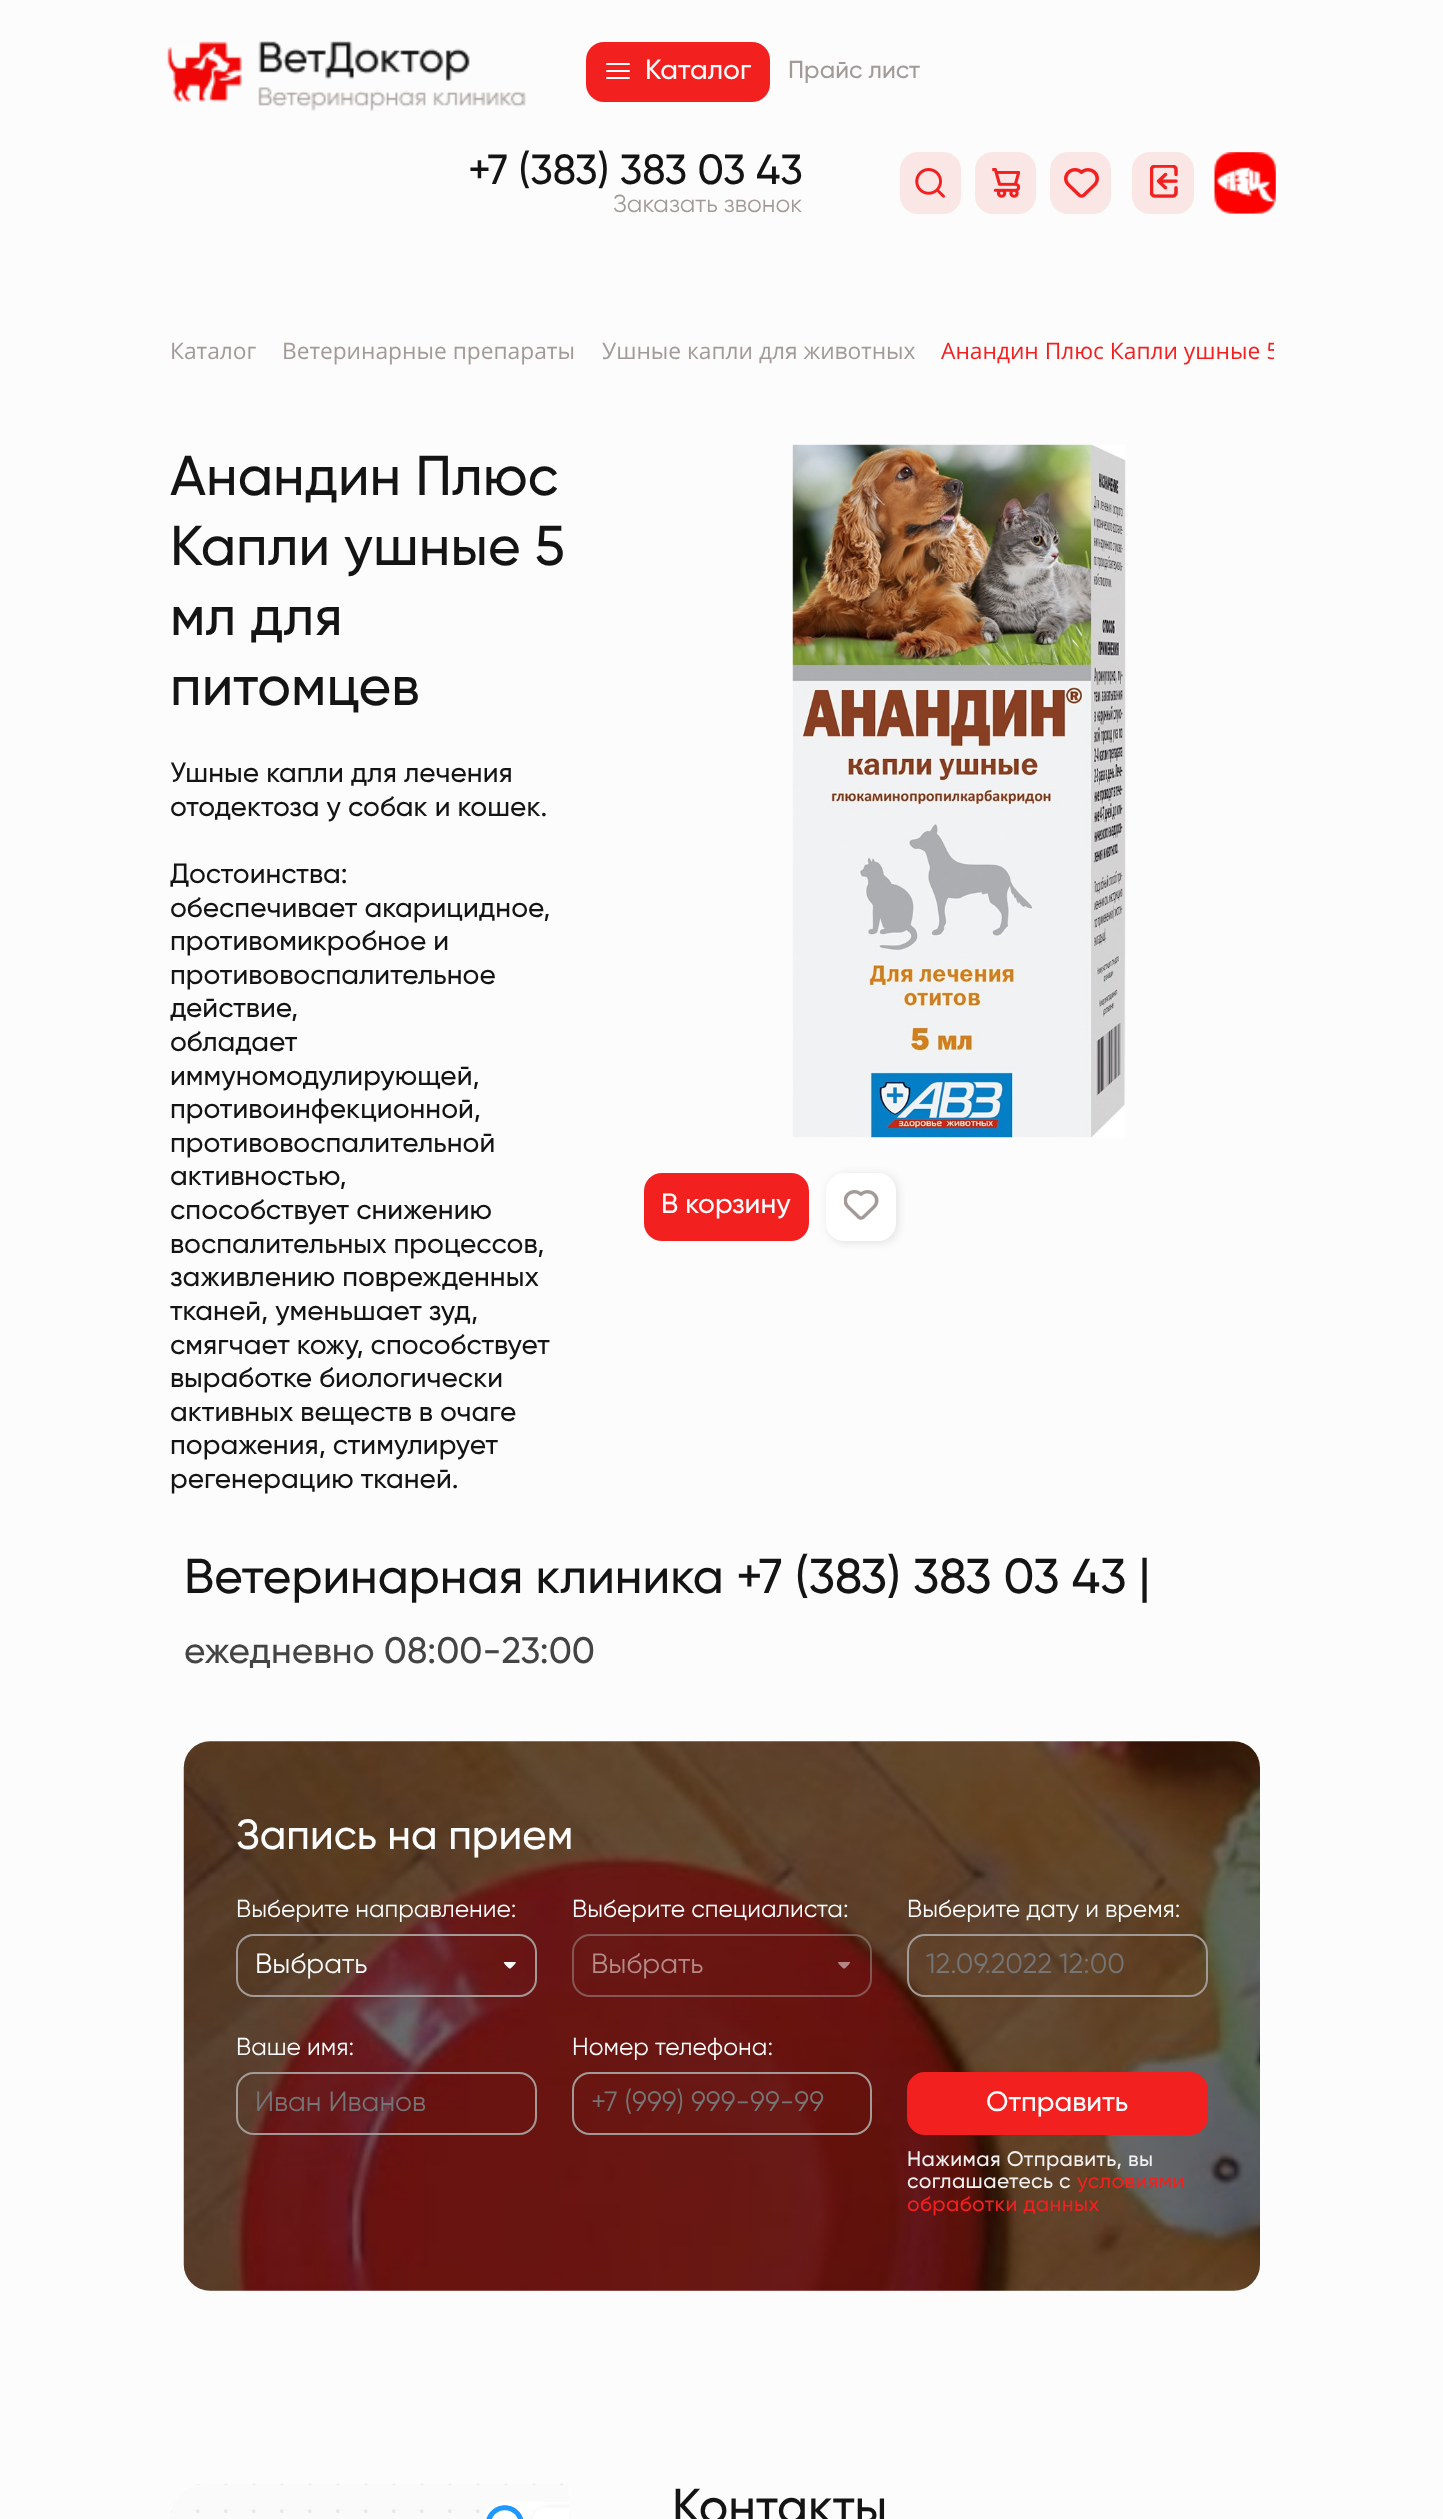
(async () => {
const canvas = document.querySelector("canvas")
canvas.width = 1443
canvas.height = 2519
const c = canvas.getContext("2d")
c.miterLimit = 4
c.fontKerning = "normal"
function T(s,x,y){c.fillText(s,x,y)}
function R(x,y,w,h){c.fillRect(x,y,w,h)}
function Q(x,y,w,h,r){c.beginPath();c.roundRect(x,y,w,h,r);c.fill()}
async function I(src,x,y,w,h){const img=new Image();img.src=src;await img.decode();c.drawImage(img,x,y,w,h)}
c.fillStyle="#fcfcfc"
R(0,0,1443,2519)
await I("1.png",167,41,359,70)
c.fillStyle="#f32020"
Q(586,42,184,60,18)
c.fillStyle="#fcfcfc"
Q(606,63,24,2,1)
Q(606,70,24,2,1)
Q(606,77,24,2,1)
c.font="500 28px Gilroy"
T("Каталог",645,79)
c.font="500 24.5px Gilroy"
c.fillStyle="#a29a97"
T("Прайс лист",788,78)
c.font="500 42px Gilroy"
c.fillStyle="#141414"
T("+7 (383) 383 03 43",468,184)
c.font="24.5px Gilroy"
c.fillStyle="#a29a97"
T("Заказать звонок",613,212)
c.fillStyle="#fbe6e6"
Q(900,152,61,62,18)
await I("2.png",915,168,30,30)
Q(975,152,61,62,18)
await I("3.png",992,168,28,30)
Q(1050,152,61,62,18)
await I("4.png",1064,168,35,30)
Q(1132,152,62,62,18)
await I("5.png",1150,165,28,33)
Q(1215,152,61,62,18)
await I("6.png",1214,152,62,62)
c.font="22.75px Open Sans"
c.fillStyle="#a29a97"
T("Каталог",170,359)
T("Ветеринарные препараты",282,359)
T("Ушные капли для животных",602,359)
c.save()
c.beginPath()
c.rect(170,315,1104,60)
c.clip()
c.fillStyle="#f32020"
T("Анандин Плюс Капли ушные 5",941,359)
c.restore()
c.font="500 56px Gilroy"
c.fillStyle="#141414"
T("Анандин Плюс",170,495)
T("Капли ушные 5",170,565)
T("мл для",170,635)
T("питомцев",170,705)
c.font="500 28px Gilroy"
T("Ушные капли для лечения",170,782)
T("отодектоза у собак и кошек.",170,816)
T("Достоинства:",170,883)
T("обеспечивает акарицидное,",170,917)
T("противомикробное и",170,950)
T("противовоспалительное",170,984)
T("действие,",170,1017)
T("обладает",170,1051)
T("иммуномодулирующей,",170,1085)
T("противоинфекционной,",170,1118)
T("противовоспалительной",170,1152)
T("активностью,",170,1185)
T("способствует снижению",170,1219)
T("воспалительных процессов,",170,1253)
T("заживлению поврежденных",170,1286)
T("тканей, уменьшает зуд,",170,1320)
T("смягчает кожу, способствует",170,1354)
T("выработке биологически",170,1387)
T("активных веществ в очаге",170,1421)
T("поражения, стимулирует",170,1454)
T("регенерацию тканей.",170,1488)
await I("7.png",792,444,334,694)
c.fillStyle="#f32020"
Q(644,1173,165,68,18)
c.fillStyle="#fcfcfc"
T("В корзину",661,1213)
c.fillStyle="#0000001a"
c.filter="blur(4.5px)"
c.beginPath()
c.roundRect(828,1174,70,69,18)
c.fill()
c.filter="none"
c.fillStyle="#fff"
Q(826,1173,70,68,18)
await I("8.png",844,1190,35,30)
c.font="500 49px Gilroy"
c.fillStyle="#141414"
T("Ветеринарная клиника +7 (383) 383 03 43 |",184,1593)
c.font="500 36.75px Gilroy"
c.fillStyle="#444"
T("ежедневно 08:00-23:00",184,1663)
await I("9.png",183,1741,1077,550)
c.font="500 42px Gilroy"
c.fillStyle="#fcfcfc"
T("Запись на прием",236,1849)
c.font="24.5px Gilroy"
T("Выберите направление:",236,1917)
c.beginPath()
c.roundRect(237,1935,299,61,17)
c.strokeStyle="#a29a97"
c.lineWidth=2
c.stroke()
c.font="28px Gilroy"
T("Выбрать",255,1973)
await I("10.png",503,1962,13,7)
c.font="24.5px Gilroy"
T("Выберите специалиста:",572,1917)
c.beginPath()
c.roundRect(573,1935,298,61,17)
c.strokeStyle="#a29a9780"
c.stroke()
c.font="28px Gilroy"
c.fillStyle="#b48b89"
T("Выбрать",591,1973)
await I("11.png",838,1962,12,7)
c.font="24.5px Gilroy"
c.fillStyle="#fcfcfc"
T("Выберите дату и время:",907,1917)
c.beginPath()
c.roundRect(908,1935,299,61,17)
c.strokeStyle="#a29a97"
c.stroke()
c.font="28px Gilroy"
c.fillStyle="#757575"
T("12.09.2022 12:00",926,1973)
c.font="24.5px Gilroy"
c.fillStyle="#fcfcfc"
T("Ваше имя:",236,2055)
c.beginPath()
c.roundRect(237,2073,299,61,17)
c.stroke()
c.font="28px Gilroy"
c.fillStyle="#757575"
T("Иван Иванов",255,2111)
c.font="24.5px Gilroy"
c.fillStyle="#fcfcfc"
T("Номер телефона:",572,2055)
c.beginPath()
c.roundRect(573,2073,298,61,17)
c.stroke()
c.font="28px Gilroy"
c.fillStyle="#757575"
T("+7 (999) 999-99-99",591,2111)
c.fillStyle="#f32020"
c.beginPath()
c.roundRect(908,2073,299,61,17)
c.fill()
c.strokeStyle="#f32020"
c.stroke()
c.font="500 28px Gilroy"
c.fillStyle="#fcfcfc"
T("Отправить",986,2111)
c.letterSpacing="0.4px"
c.font="500 21px Gilroy"
c.fillStyle="#f0f0f0"
T("Нажимая Отправить, вы",907,2166)
T("соглашаетесь с",907,2188)
c.fillStyle="#f32020"
T("условиями",1077,2188)
T("обработки данных",907,2211)
await I("12.png",170,2483,399,36)
c.letterSpacing="0px"
c.font="500 49px Gilroy"
c.fillStyle="#141414"
T("Контакты",672,2523)
})()
